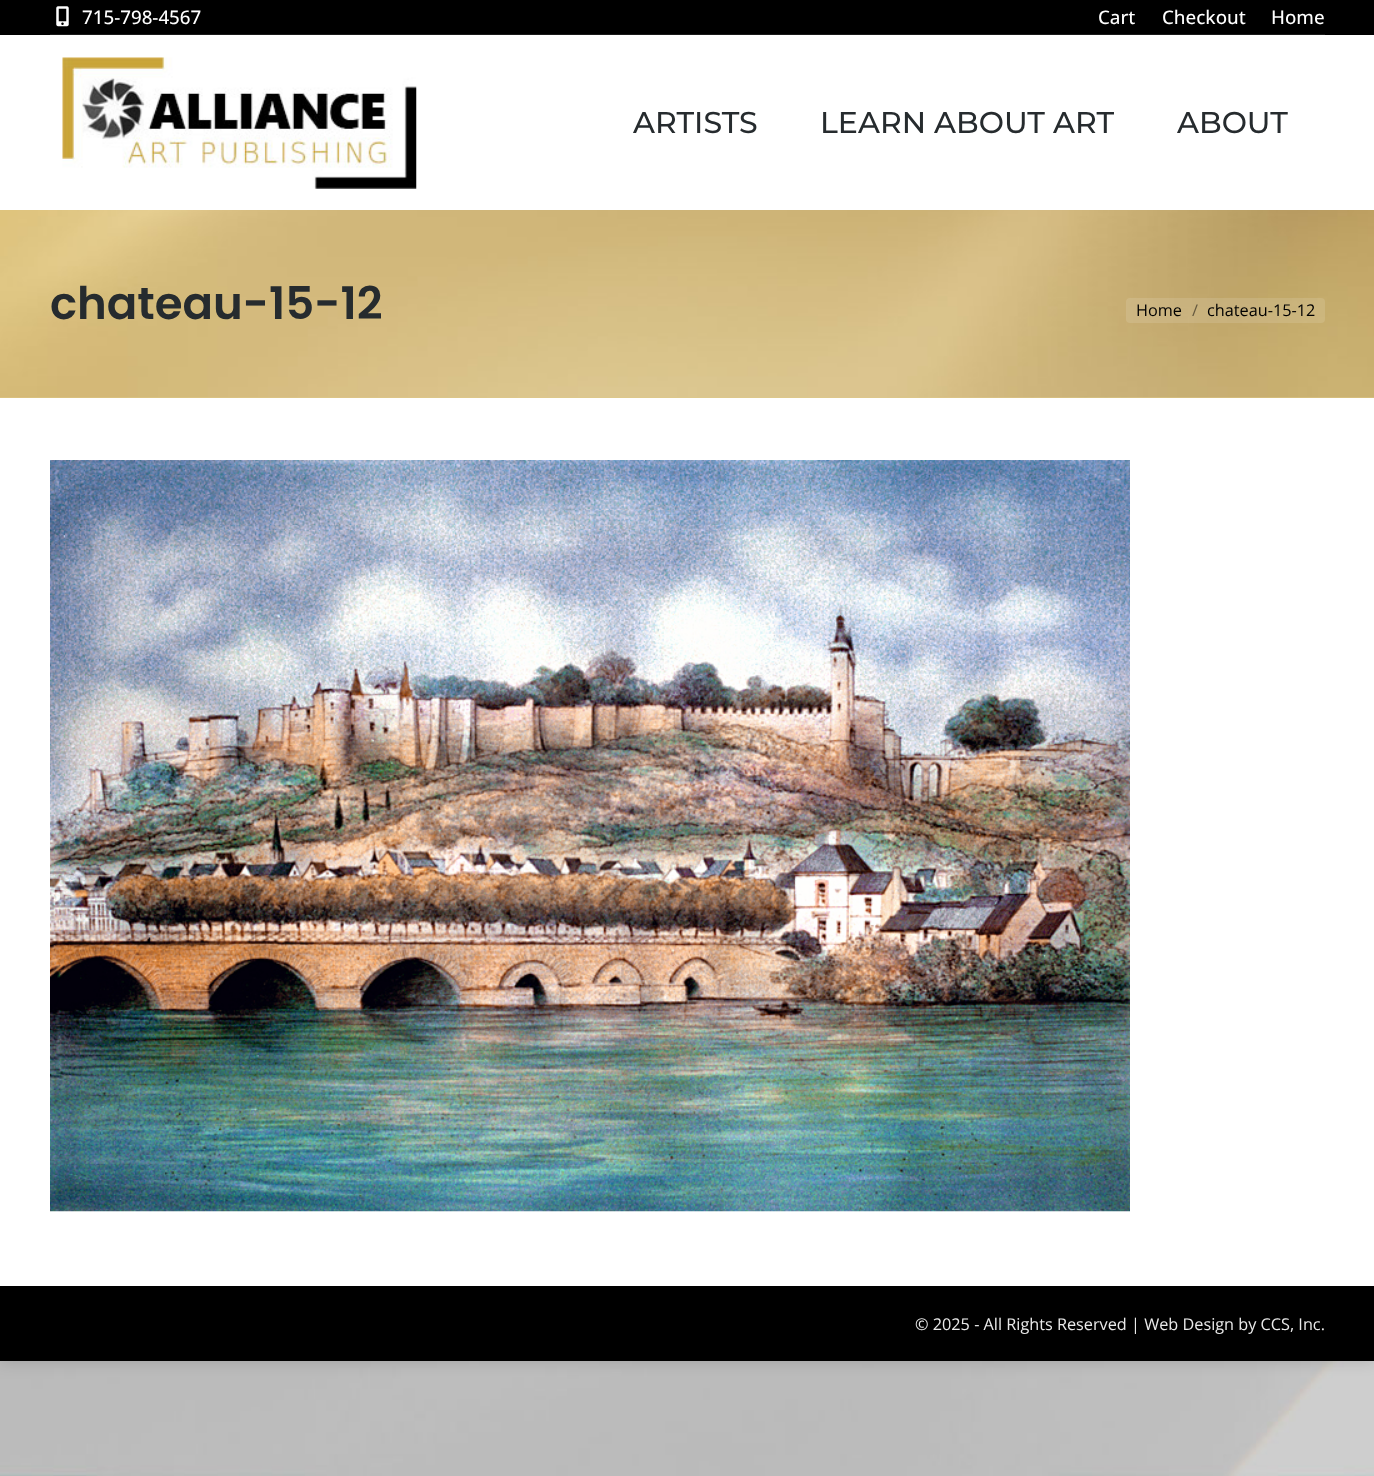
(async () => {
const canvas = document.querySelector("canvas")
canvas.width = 1374
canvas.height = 1476
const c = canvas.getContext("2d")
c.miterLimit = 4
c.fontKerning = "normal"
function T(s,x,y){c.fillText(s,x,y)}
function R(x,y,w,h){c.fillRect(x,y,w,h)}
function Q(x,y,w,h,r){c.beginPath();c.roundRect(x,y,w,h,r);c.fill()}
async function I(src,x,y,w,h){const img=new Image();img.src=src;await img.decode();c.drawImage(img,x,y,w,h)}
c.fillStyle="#fff"
R(0,0,1374,1476)
await I("1.png",0,1361,1374,115)
c.fillStyle="#00000026"
c.filter="blur(7.5px)"
c.beginPath()
c.rect(0,0,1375,1361)
c.fill()
c.filter="none"
c.fillStyle="#fff"
R(0,35,1374,1251)
c.fillStyle="#000"
R(0,0,1374,35)
await I("2.png",56,6,13,21)
c.font="500 18.75px Open Sans"
c.fillStyle="#fff"
T("715-798-4567",82,24)
T("Cart",1098,24)
T("Checkout",1162,24)
T("Home",1271,24)
c.fillStyle="#1b1b1b"
R(50,34,1275,1)
await I("3.png",62,57,355,132)
c.font="500 30px Montserrat"
c.fillStyle="#262b2e"
T("ARTISTS",633,133)
T("LEARN ABOUT ART",820,133)
T("ABOUT",1177,133)
c.fillStyle="#dfc887"
R(0,397,1374,1)
await I("4.png",0,210,1374,188)
c.font="600 45px Poppins"
c.fillStyle="#262b2e"
T("chateau-15-12",50,319)
c.fillStyle="#ffffff1f"
Q(1126,298,199,25,4)
c.font="16.25px Open Sans"
c.fillStyle="#000"
T("Home",1136,316)
c.fillStyle="#65593f"
T("/",1192,316)
c.fillStyle="#000"
T("chateau-15-12",1207,316)
await I("5.png",50,460,1080,752)
R(0,1286,1374,75)
c.fillStyle="#eaeaea"
T("© 2025 - All Rights Reserved | Web Design by CCS, Inc.",915,1330)
})()
